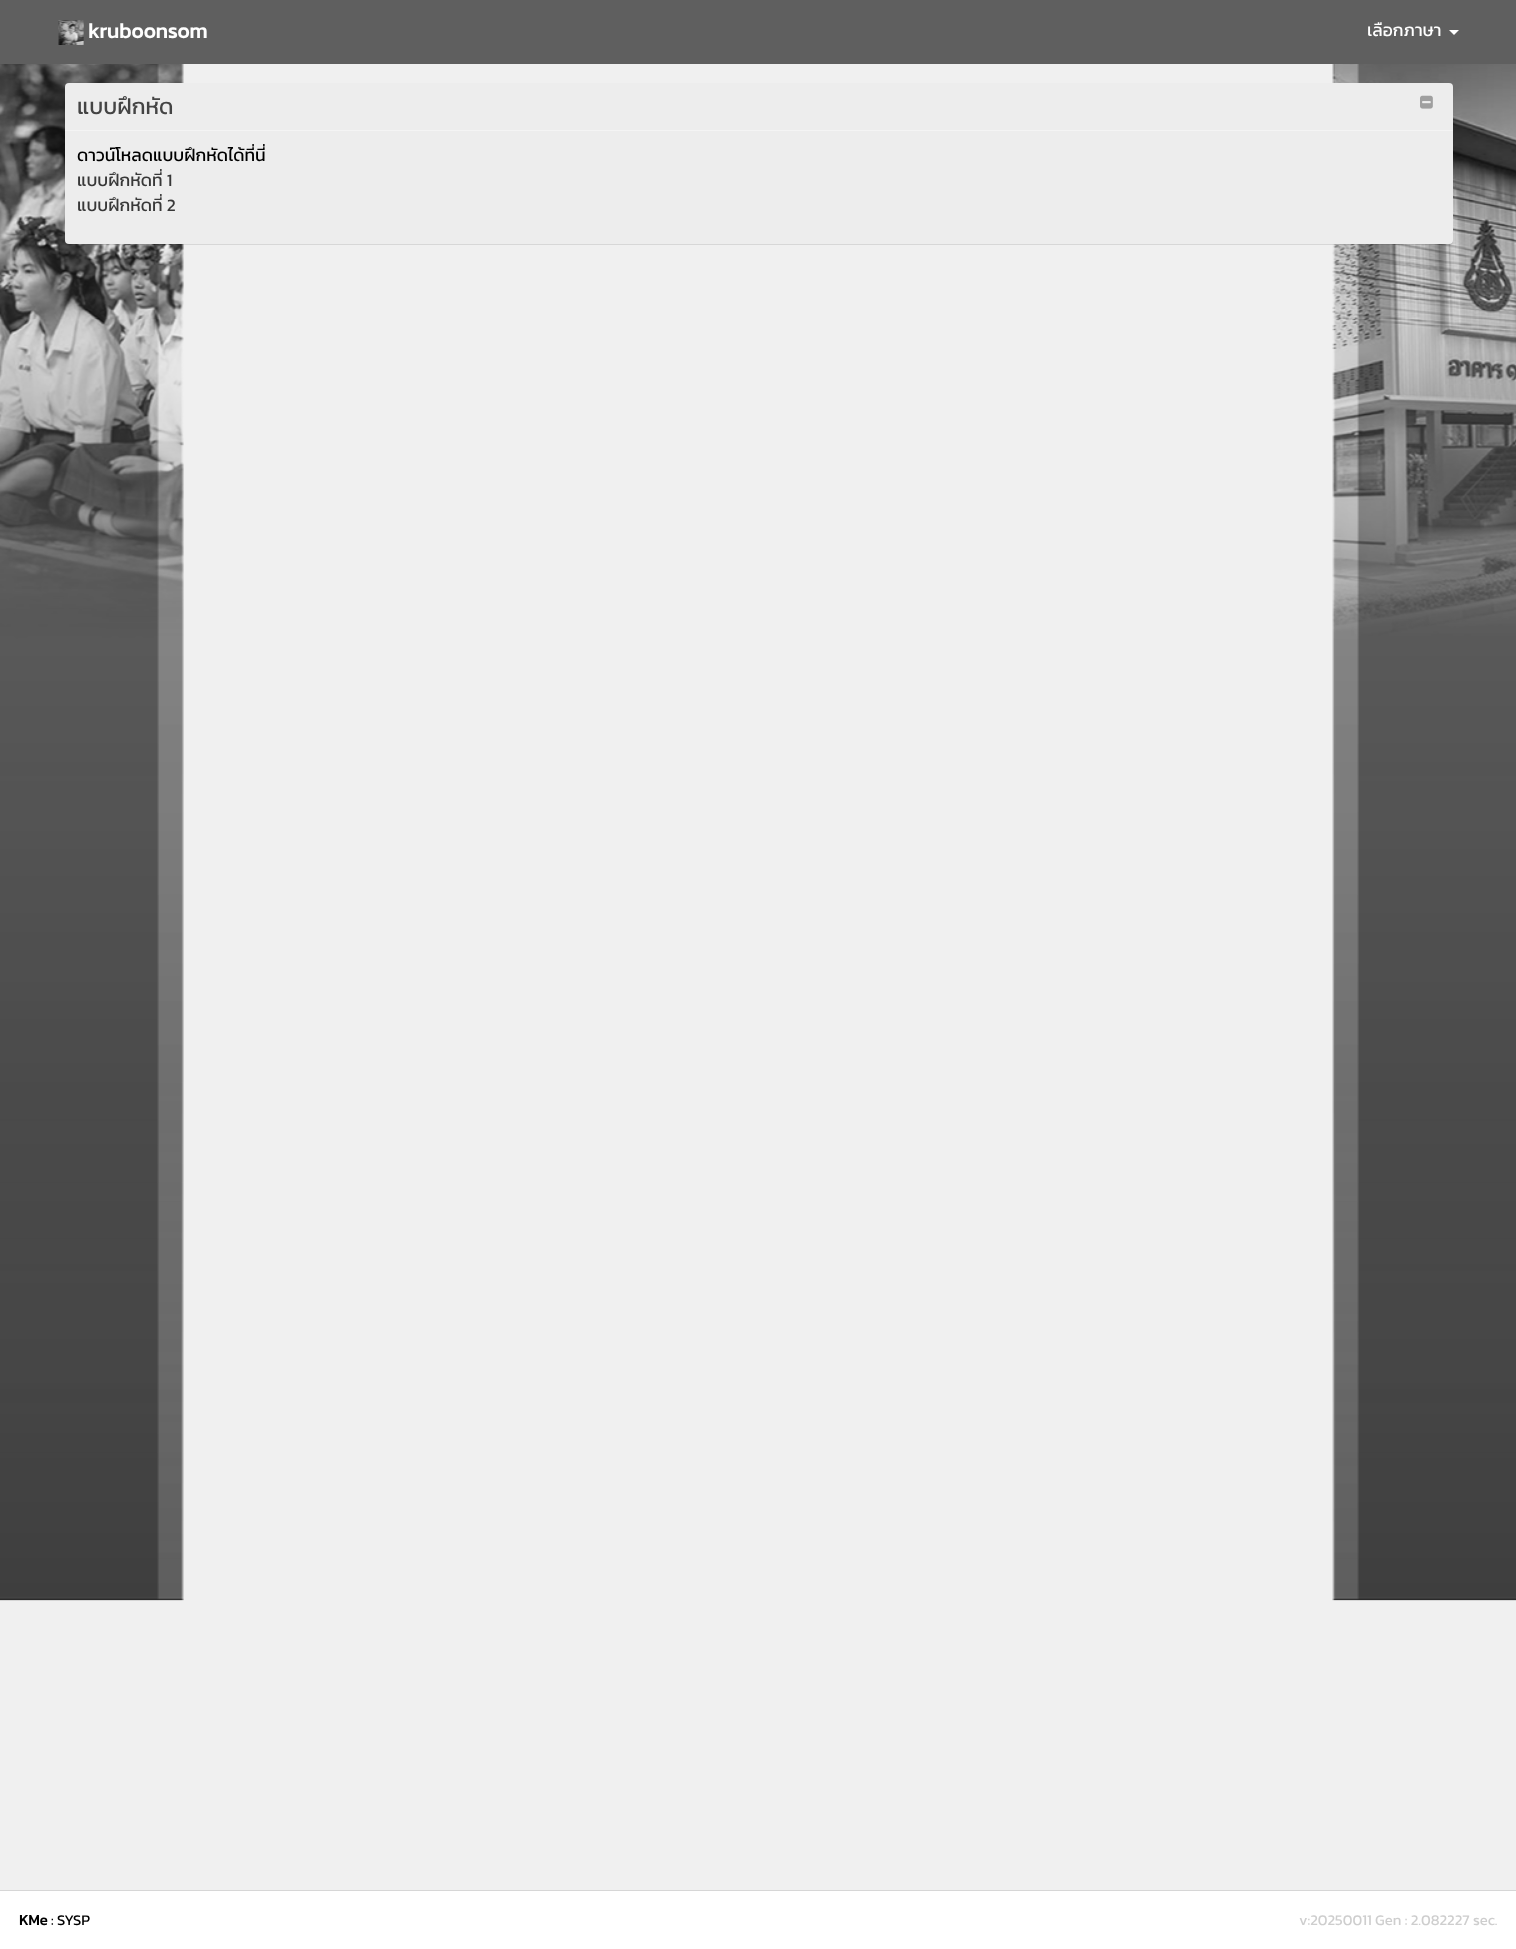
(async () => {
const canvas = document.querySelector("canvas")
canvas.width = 1516
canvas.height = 1949
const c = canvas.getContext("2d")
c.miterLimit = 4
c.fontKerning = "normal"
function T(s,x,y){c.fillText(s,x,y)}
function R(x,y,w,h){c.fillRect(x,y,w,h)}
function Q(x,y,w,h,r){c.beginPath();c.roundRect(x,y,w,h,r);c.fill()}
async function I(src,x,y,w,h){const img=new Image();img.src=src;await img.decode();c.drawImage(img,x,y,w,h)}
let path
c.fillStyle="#f0f0f0"
R(0,0,1516,1949)
c.fillStyle="#5f5f5f"
R(0,0,1516,64)
await I("1.png",58,20,26,25)
c.font="bold 21px Kanit"
c.fillStyle="#fff"
T("kruboonsom",88,38)
c.font="17.5px Kanit"
T("เลือกภาษา",1367,36)
path = new Path2D("M1449 30h10l-5 5z")
c.fill(path)
await I("2.png",0,64,1516,1537)
c.fillStyle="#0000001a"
c.filter="blur(0.5px)"
c.beginPath()
c.roundRect(65,84,1388,161,4)
c.fill()
c.filter="none"
c.fillStyle="#ededed"
Q(65,83,1388,161,4)
c.fillStyle="#f4f4f4"
R(65,130,1388,1)
c.font="22.5px Kanit"
c.fillStyle="#444"
T("แบบฝึกหัด",77,114)
await I("3.png",1420,95,13,14)
c.font="17.5px Kanit"
c.fillStyle="#000"
T("ดาวน์โหลดแบบฝึกหัดได้ที่นี่",77,161)
c.fillStyle="#383838"
T("แบบฝึกหัดที่ 1",77,186)
T("แบบฝึกหัดที่ 2",77,211)
c.fillStyle="#fff"
R(0,1891,1516,58)
c.fillStyle="#d6d6d6"
R(0,1890,1516,1)
c.font="bold 14.9px Kanit"
c.fillStyle="#000"
T("KMe",19,1925)
c.font="14.9px Kanit"
T(": SYSP",51,1925)
c.fillStyle="#cecece"
T("v:20250011 Gen : 2.082227 sec.",1299,1925)
})()
